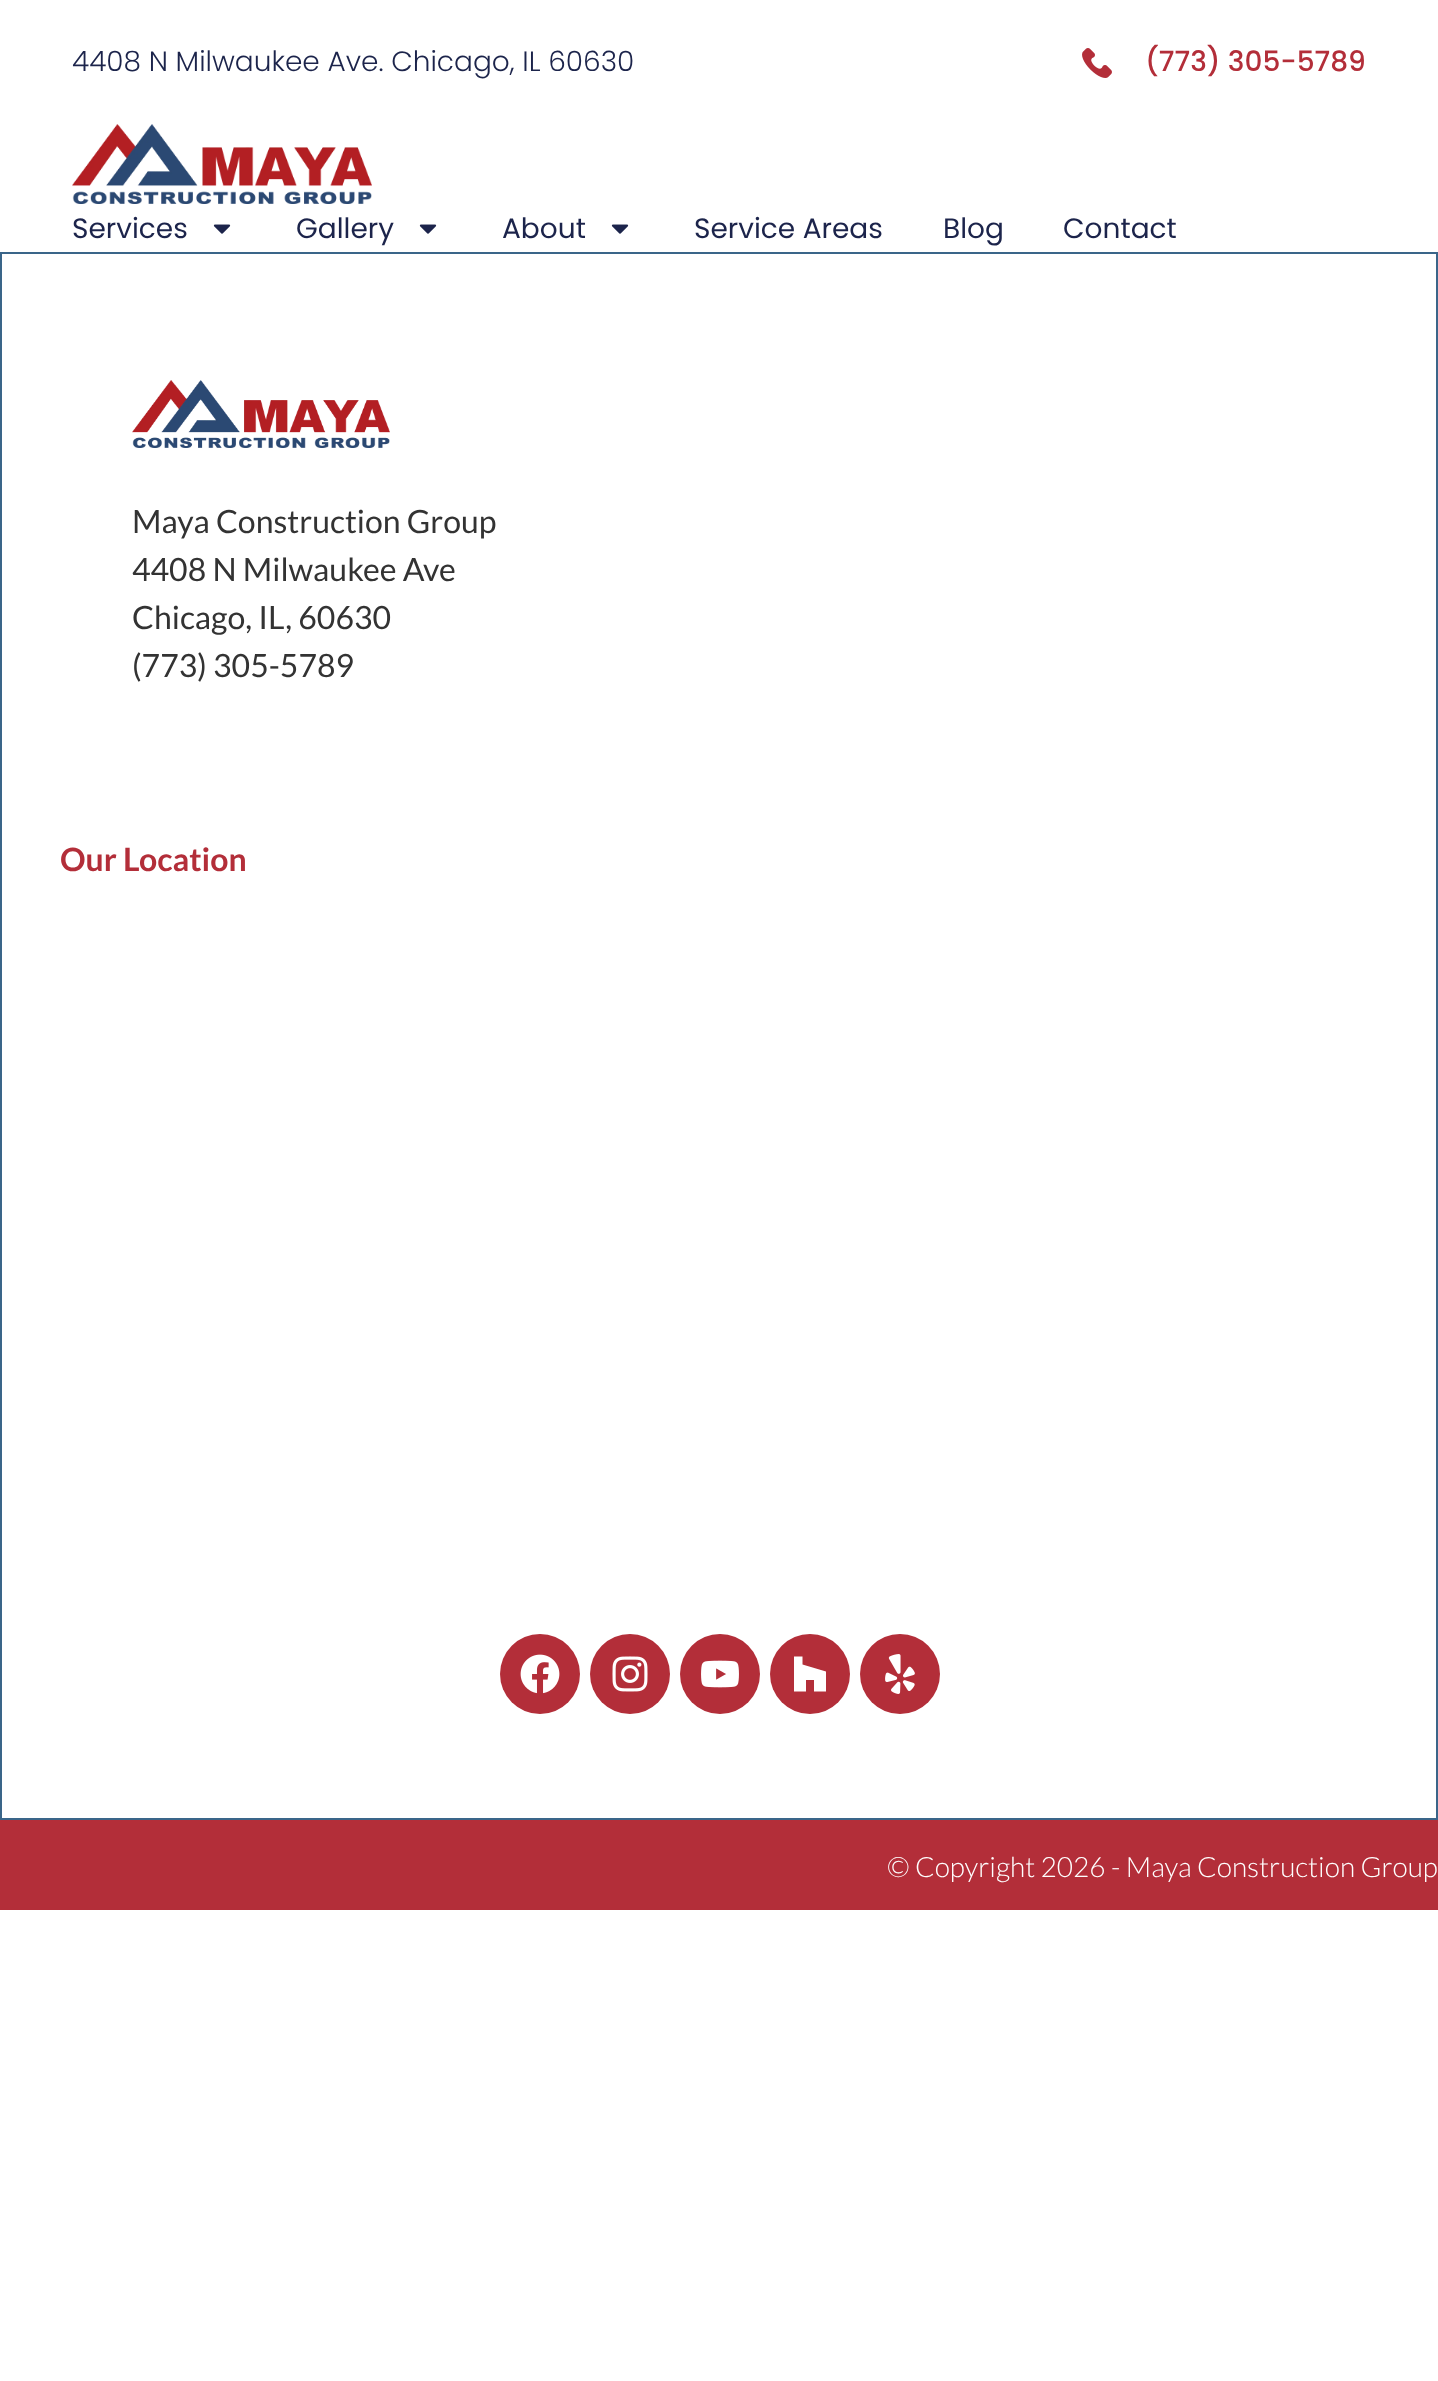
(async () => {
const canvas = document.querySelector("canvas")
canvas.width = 1438
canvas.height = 2381
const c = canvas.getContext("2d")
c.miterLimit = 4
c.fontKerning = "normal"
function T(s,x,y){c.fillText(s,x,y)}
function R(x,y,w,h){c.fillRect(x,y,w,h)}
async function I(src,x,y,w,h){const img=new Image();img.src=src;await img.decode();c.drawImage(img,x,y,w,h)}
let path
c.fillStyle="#fff"
R(0,0,1438,2381)
c.font="300 28px Poppins"
c.fillStyle="#1c244b"
T("4408 N Milwaukee Ave. Chicago, IL 60630",72,71)
await I("1.png",1082,48,30,30)
c.font="500 28px Poppins"
c.fillStyle="#b32e39"
T("(773) 305-5789",1145,71)
await I("2.png",72,124,300,80)
c.font="28px Poppins"
c.fillStyle="#1c244b"
T("Services",72,238)
await I("3.png",213,224,18,10)
T("Gallery",296,238)
await I("3.png",419,224,18,10)
T("About",502,238)
await I("3.png",611,224,18,10)
T("Service Areas",694,238)
T("Blog",943,238)
T("Contact",1063,238)
c.strokeStyle="#3a6589"
c.lineWidth=2
c.strokeRect(1,253,1436,1566)
await I("4.png",132,380,258,68)
c.font="32px Lato"
c.fillStyle="#333"
T("Maya Construction Group",132,533)
T("4408 N Milwaukee Ave",132,581)
T("Chicago, IL, 60630",132,629)
T("(773) 305-5789",132,677)
c.font="bold 32px Lato"
c.fillStyle="#b32e39"
T("Our Location",60,871)
c.beginPath()
c.arc(540,1674,40,0,7)
c.fill()
await I("5.png",520,1654,40,40)
c.beginPath()
c.arc(630,1674,40,0,7)
c.fill()
await I("6.png",612,1656,36,36)
c.beginPath()
c.arc(720,1674,40,0,7)
c.fill()
await I("7.png",701,1660,38,28)
c.beginPath()
c.arc(810,1674,40,0,7)
c.fill()
c.fillStyle="#fff"
path = new Path2D("M814 1680h-8v11.5h-12v-35h8.5v8l23.5 7v20h-12z")
c.fill(path)
c.fillStyle="#b32e39"
c.beginPath()
c.arc(900,1674,40,0,7)
c.fill()
await I("8.png",885,1654,30,40)
R(0,1820,1438,90)
c.font="300 28px Lato"
c.fillStyle="#fff"
T("© Copyright 2026 - Maya Construction Group",887,1877)
})()
